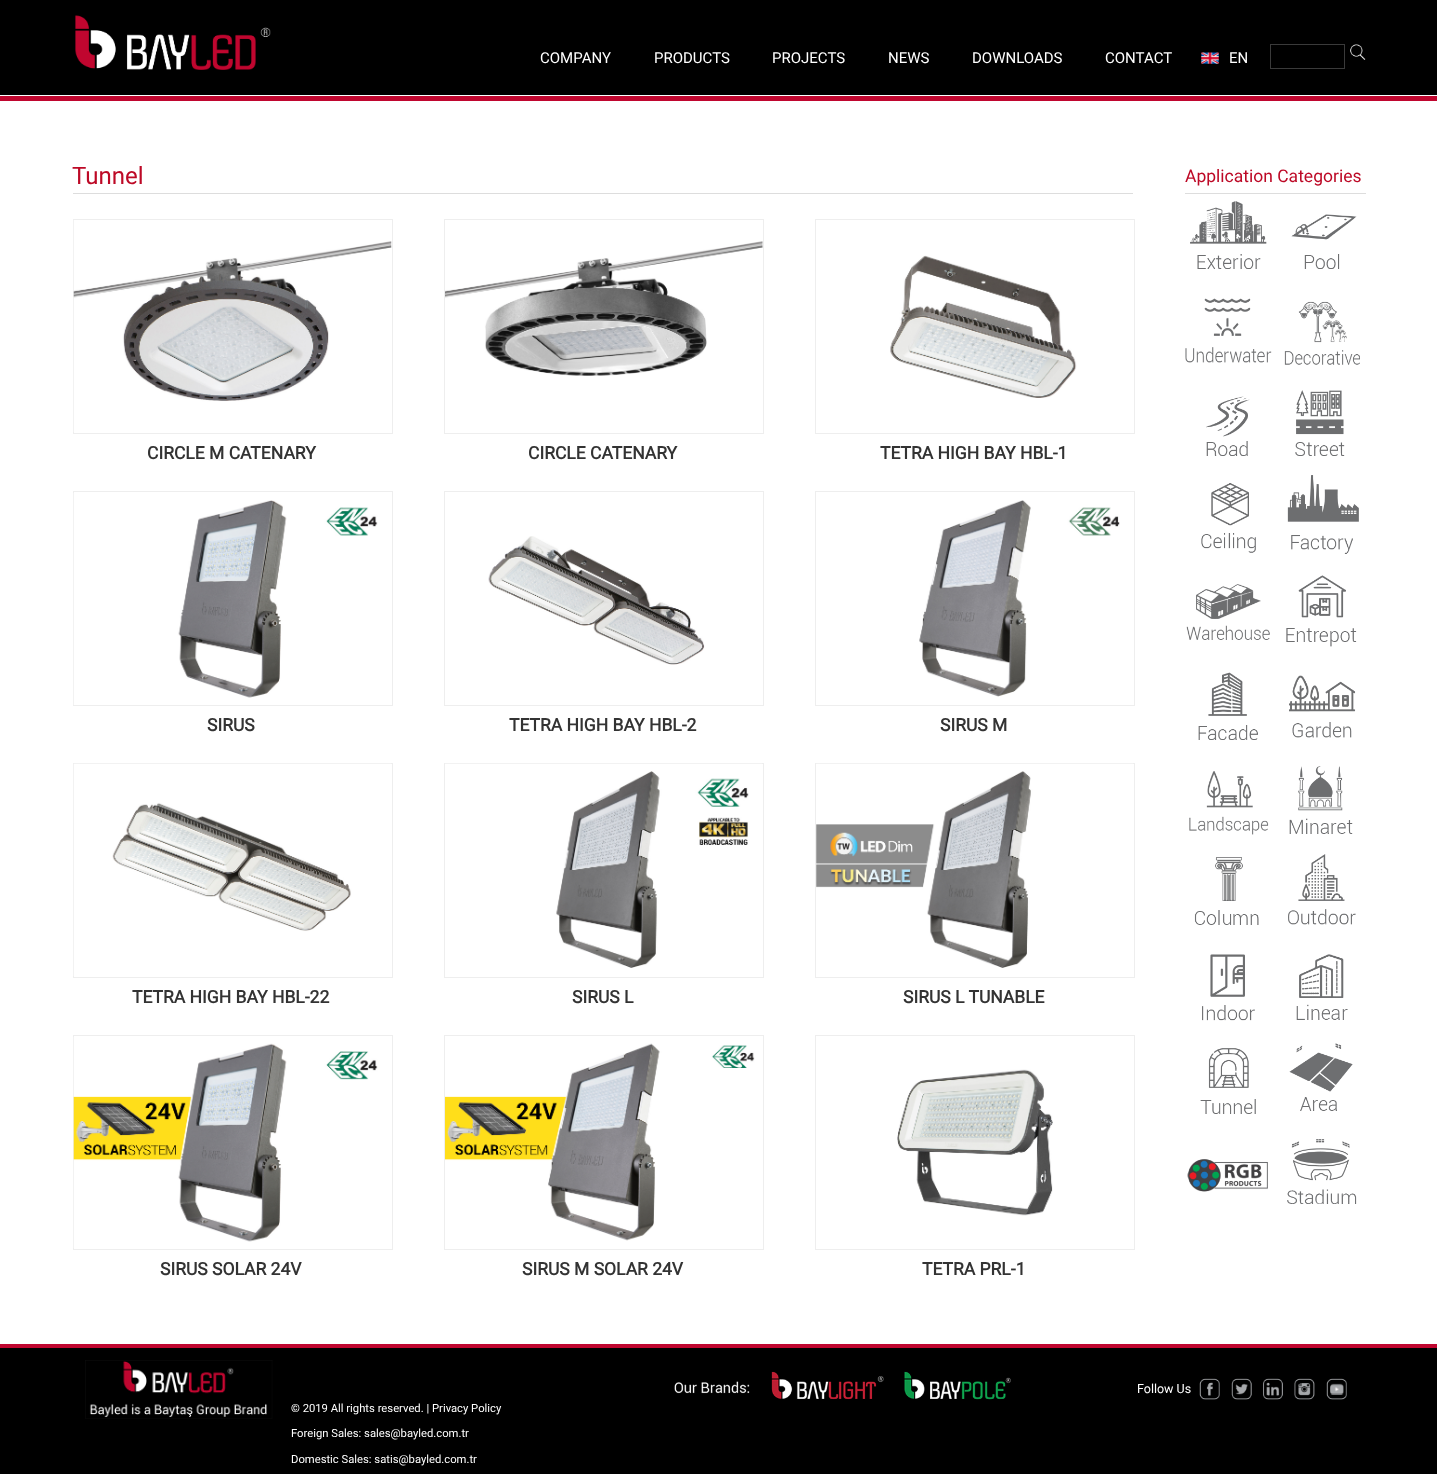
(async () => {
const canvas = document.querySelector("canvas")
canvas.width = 1437
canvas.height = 1474
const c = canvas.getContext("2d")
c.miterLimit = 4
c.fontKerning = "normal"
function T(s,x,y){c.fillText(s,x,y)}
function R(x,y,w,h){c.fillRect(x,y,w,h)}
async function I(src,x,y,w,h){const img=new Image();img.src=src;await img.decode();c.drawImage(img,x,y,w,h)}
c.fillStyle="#fff"
R(0,0,1437,1474)
c.fillStyle="#000"
R(0,0,1437,95)
await I("1.png",75,15,196,55)
c.font="15px Roboto"
c.fillStyle="#fff"
T("COMPANY",540,63)
T("PRODUCTS",654,63)
T("PROJECTS",772,63)
T("NEWS",888,63)
T("DOWNLOADS",972,63)
T("CONTACT",1105,63)
await I("2.png",1201,52,18,12)
T("EN",1229,63)
c.strokeStyle="#3a3a3a"
c.strokeRect(1270.5,44.5,74,24)
await I("3.png",1350,44,16,16)
c.fillStyle="#c0062f"
R(0,96,1437,5)
c.fillStyle="#ddd"
R(73,193,1060,1)
c.font="24px Roboto"
c.fillStyle="#bd0926"
T("Tunnel",72,184)
c.strokeStyle="#eee"
c.strokeRect(73.5,219.5,319,214)
await I("4.png",73,220,319,212)
c.font="bold 17.5px Roboto"
c.fillStyle="#333"
T("CIRCLE M CATENARY",147,459)
c.strokeRect(444.5,219.5,319,214)
await I("5.png",445,241,318,135)
T("CIRCLE CATENARY",528,459)
c.strokeRect(815.5,219.5,319,214)
await I("6.png",890,255,187,143)
T("TETRA HIGH BAY HBL-1",880,459)
c.strokeRect(73.5,491.5,319,214)
await I("7.png",73,493,305,212)
T("SIRUS",207,731)
c.strokeRect(444.5,491.5,319,214)
await I("8.png",488,536,217,129)
T("TETRA HIGH BAY HBL-2",509,731)
c.strokeRect(815.5,491.5,319,214)
await I("9.png",919,500,201,197)
T("SIRUS M",940,731)
c.strokeRect(73.5,763.5,319,214)
await I("10.png",73,763,318,213)
T("TETRA HIGH BAY HBL-22",132,1003)
c.strokeRect(444.5,763.5,319,214)
await I("11.png",445,763,317,205)
T("SIRUS L",572,1003)
c.strokeRect(815.5,763.5,319,214)
await I("12.png",816,763,317,205)
T("SIRUS L TUNABLE",903,1003)
c.strokeRect(73.5,1035.5,319,214)
await I("13.png",73,1037,305,211)
T("SIRUS SOLAR 24V",160,1275)
c.strokeRect(444.5,1035.5,319,214)
await I("14.png",445,1043,310,198)
T("SIRUS M SOLAR 24V",522,1275)
c.strokeRect(815.5,1035.5,319,214)
await I("15.png",897,1069,156,147)
T("TETRA PRL-1",922,1275)
c.fillStyle="#ddd"
R(1185,193,181,1)
c.font="17.5px Roboto"
c.fillStyle="#bd0926"
T("Application Categories",1185,182)
await I("16.png",1190,201,77,68)
await I("17.png",1291,214,66,55)
await I("18.png",1185,298,87,65)
await I("19.png",1284,301,76,64)
await I("20.png",1206,396,44,60)
await I("21.png",1295,390,50,66)
await I("22.png",1201,483,55,70)
await I("23.png",1287,475,72,79)
await I("24.png",1186,584,84,56)
await I("25.png",1286,575,71,72)
await I("26.png",1198,672,60,68)
await I("27.png",1289,675,67,63)
await I("28.png",1189,771,80,64)
await I("29.png",1289,766,64,68)
await I("30.png",1194,857,65,68)
await I("31.png",1288,854,68,71)
await I("32.png",1202,954,53,67)
await I("33.png",1296,954,52,66)
await I("34.png",1200,1048,56,66)
await I("35.png",1289,1043,64,68)
await I("36.png",1187,1159,81,33)
await I("37.png",1287,1139,70,65)
c.fillStyle="#000"
R(0,1348,1437,126)
c.fillStyle="#c0062f"
R(0,1344,1437,4)
await I("38.png",674,1371,337,29)
c.font="12.5px Roboto"
c.fillStyle="#fff"
T("Follow Us",1137,1393)
await I("39.png",1199,1378,21,22)
await I("40.png",1231,1378,21,22)
await I("41.png",1263,1378,20,22)
await I("42.png",1294,1378,21,22)
await I("43.png",1326,1378,21,22)
await I("44.png",85,1360,188,59)
c.font="11.25px Roboto"
T("© 2019 All rights reserved. | Privacy Policy",291,1412)
T("Foreign Sales: sales@bayled.com.tr",291,1437)
T("Domestic Sales: satis@bayled.com.tr",291,1463)
})()
